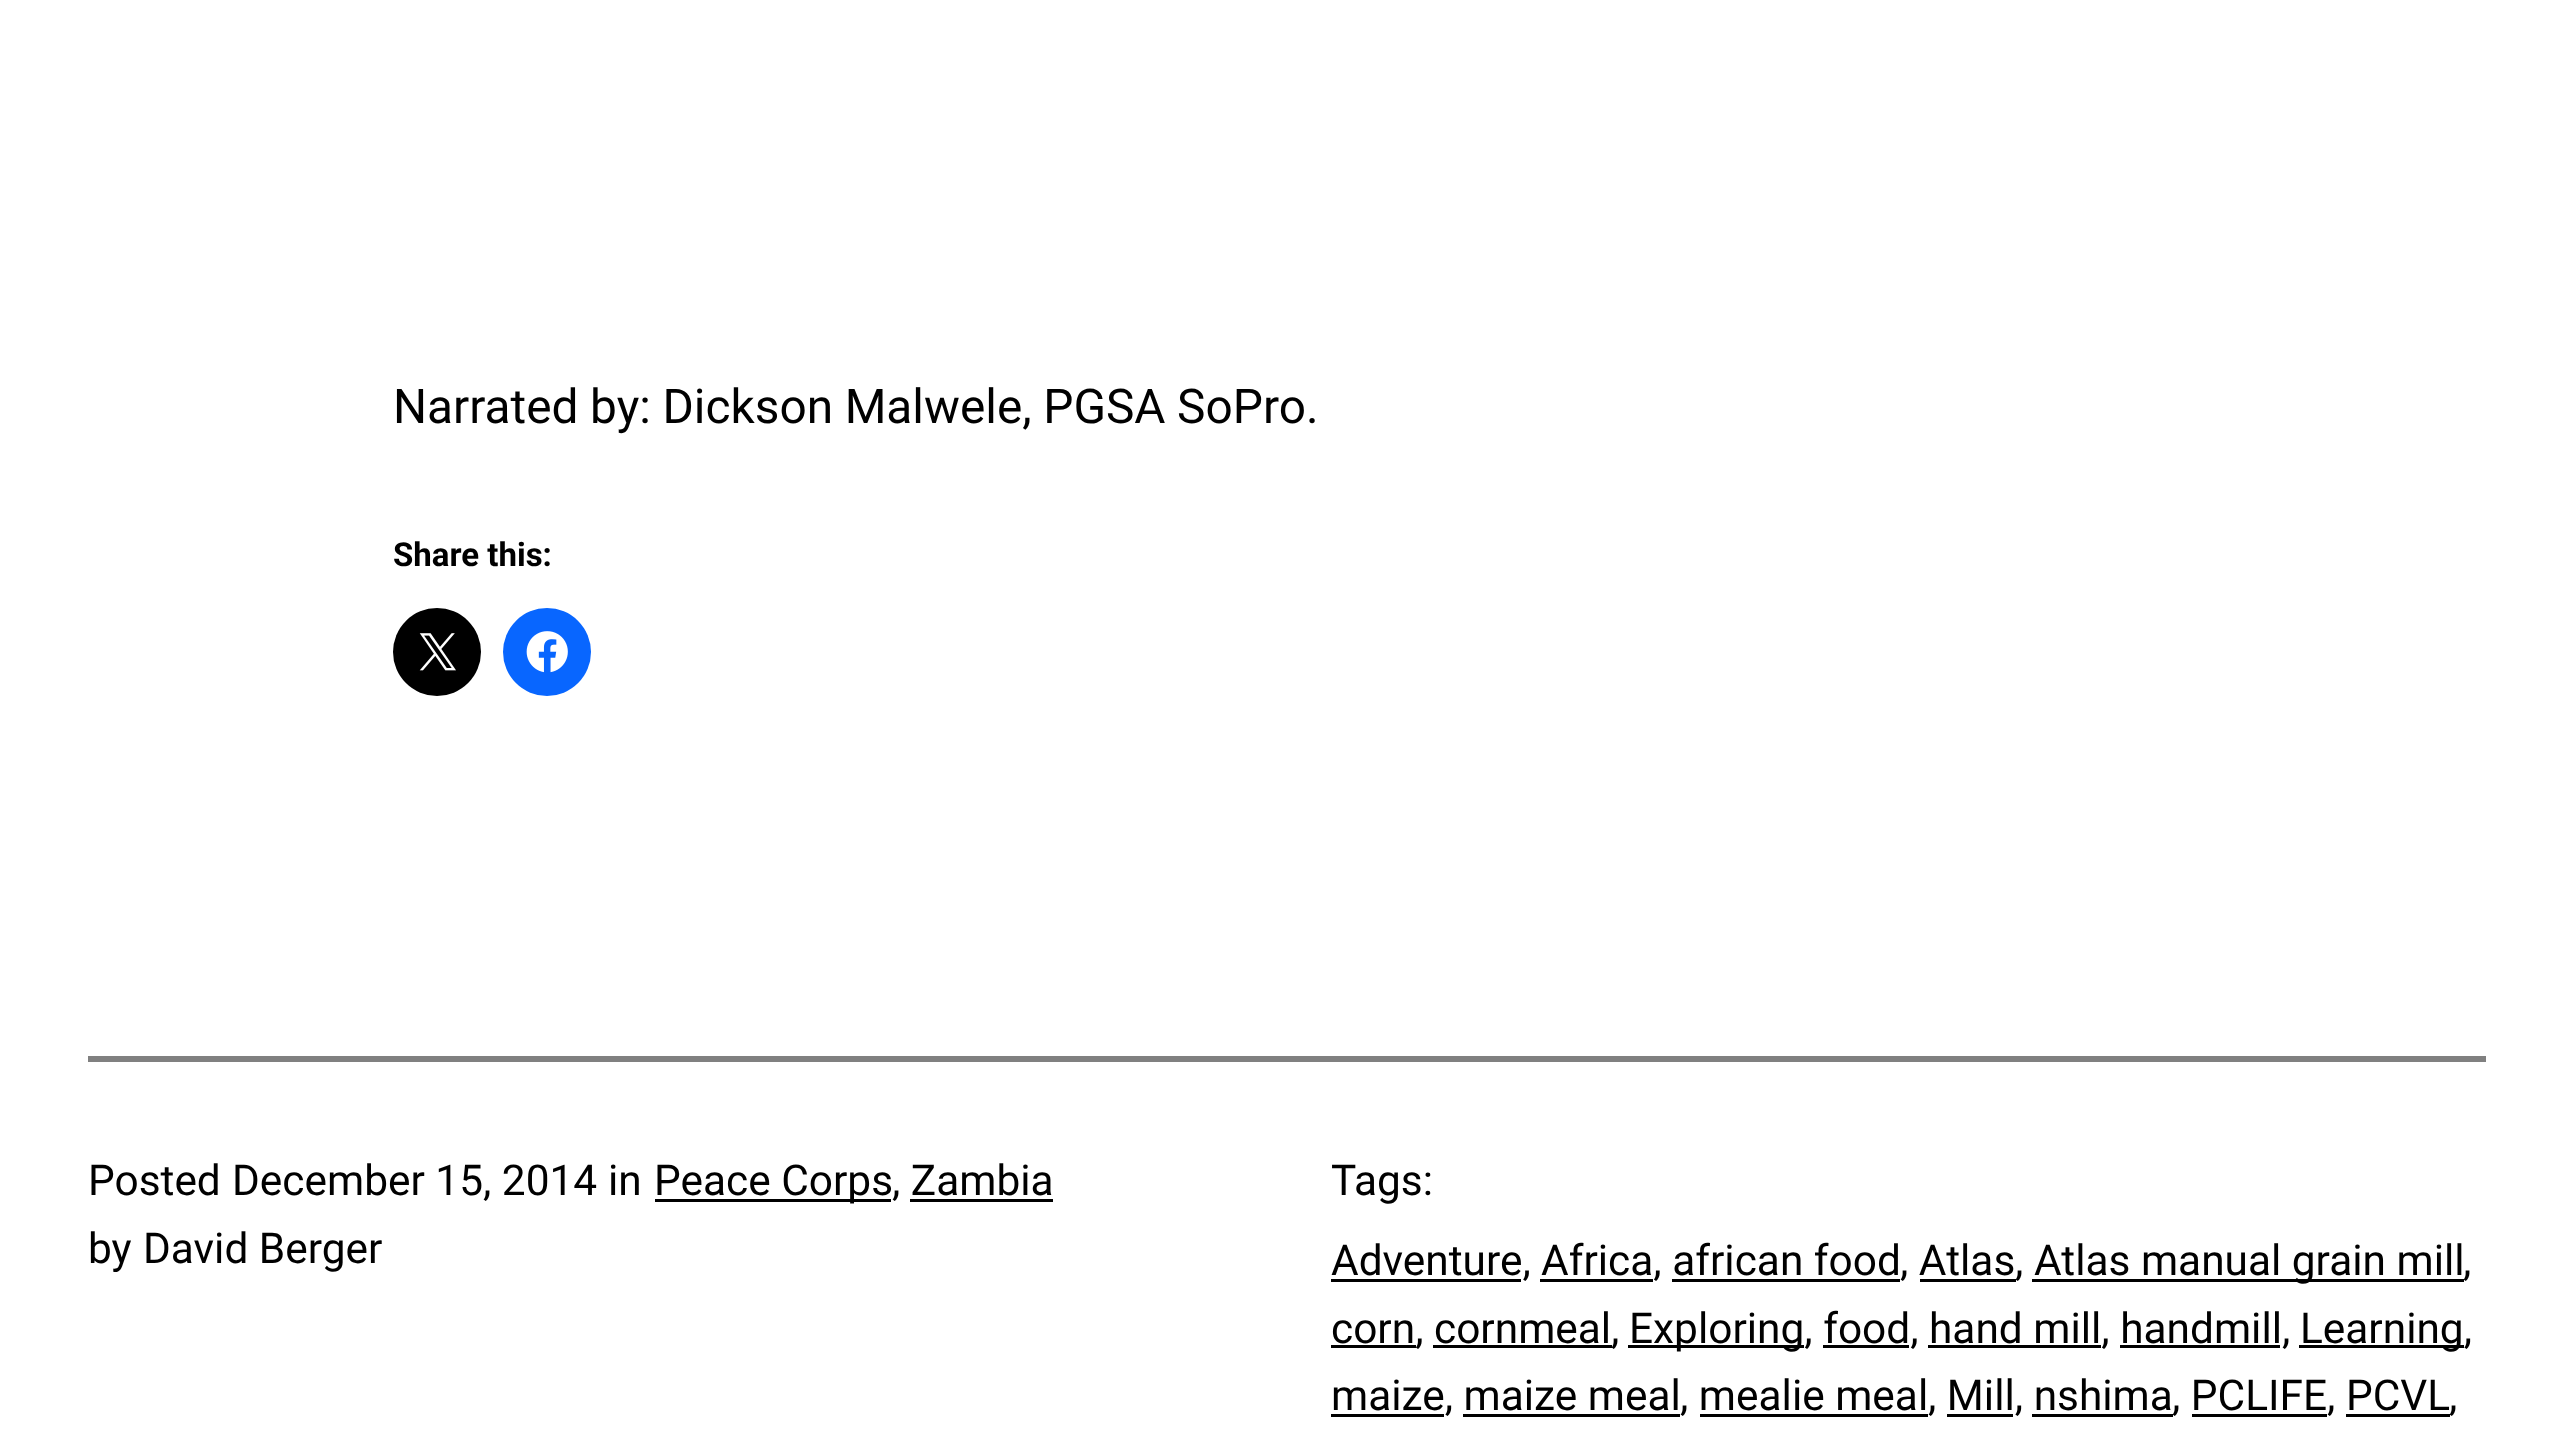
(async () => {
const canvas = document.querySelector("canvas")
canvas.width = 2574
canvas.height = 1436
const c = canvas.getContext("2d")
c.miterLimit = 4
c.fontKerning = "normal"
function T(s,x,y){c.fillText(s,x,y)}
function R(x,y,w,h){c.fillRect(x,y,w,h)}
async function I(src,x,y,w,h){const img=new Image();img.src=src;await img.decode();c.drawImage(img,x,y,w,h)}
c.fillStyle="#fff"
R(0,0,2574,1436)
c.wordSpacing="-0.25px"
c.font="47.8px Roboto"
c.fillStyle="#000"
T("Narrated by: Dickson Malwele, PGSA SoPro.",393,423)
c.wordSpacing="0px"
c.font="bold 33px Roboto"
T("Share this:",393,566)
c.beginPath()
c.arc(437,652,44,0,7)
c.fill()
await I("1.png",419,633,37,38)
c.fillStyle="#0866ff"
c.beginPath()
c.arc(547,652,44,0,7)
c.fill()
await I("2.png",526,631,42,42)
c.fillStyle="#808080"
R(88,1056,2398,6)
c.font="42.4px Roboto"
c.fillStyle="#000"
T("Posted",88,1195)
T("December 15, 2014",232,1195)
T("in",608,1195)
R(655,1199,236,3)
T("Peace Corps",654,1195)
T(", Zambia",892,1195)
R(910,1199,143,3)
T("by",88,1263)
T("David Berger",143,1263)
T("Tags:",1331,1195)
R(1331,1279,190,3)
T("Adventure,",1331,1275)
R(1540,1279,113,3)
T("Africa, african food",1541,1275)
T(", Atlas",1900,1275)
R(1920,1279,96,3)
T(",",2015,1275)
R(2032,1279,432,3)
T("Atlas manual grain mill",2034,1275)
T(",",2463,1275)
R(1672,1279,228,3)
R(1331,1345,85,3)
T("corn, cornmeal",1331,1343)
R(1433,1345,179,3)
T(",",1611,1343)
R(1628,1345,176,3)
T("Exploring, food, hand mill, handmill,",1629,1343)
R(2299,1345,165,3)
T("Learning,",2300,1343)
R(1823,1345,86,3)
R(1928,1345,173,3)
R(2120,1345,160,3)
R(1331,1414,113,3)
T("maize, maize meal",1331,1410)
T(", mealie meal",1680,1410)
T(", Mill, nshima",1928,1410)
R(2032,1414,141,3)
T(", PCLIFE, PCVL",2172,1410)
R(2346,1414,104,3)
T(",",2449,1410)
R(1463,1414,217,3)
R(1700,1414,228,3)
R(1947,1414,66,3)
R(2192,1414,135,3)
})()
